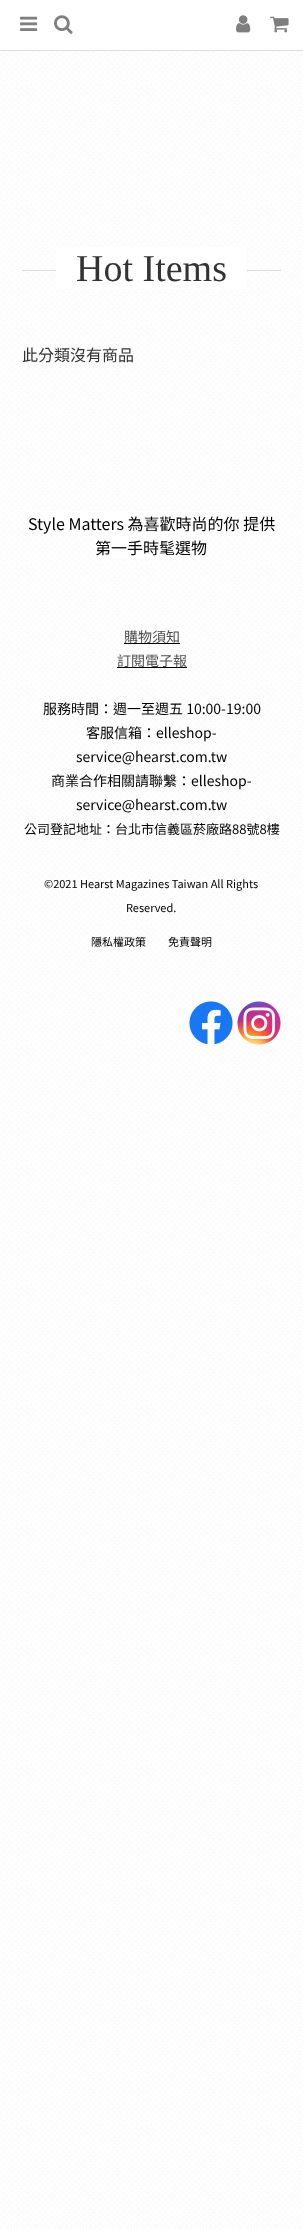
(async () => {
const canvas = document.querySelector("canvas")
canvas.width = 303
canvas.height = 2229
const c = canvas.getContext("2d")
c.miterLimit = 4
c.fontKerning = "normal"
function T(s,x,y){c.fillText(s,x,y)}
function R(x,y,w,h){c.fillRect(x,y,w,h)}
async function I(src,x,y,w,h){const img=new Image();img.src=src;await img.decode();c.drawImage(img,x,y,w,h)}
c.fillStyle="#fff"
R(0,0,303,2229)
await I("1.png",0,51,303,2178)
c.fillStyle="#ddd"
R(0,50,303,1)
await I("2.png",20,16,18,15)
await I("3.png",54,15,19,19)
await I("4.png",236,15,15,18)
await I("5.png",270,16,19,17)
R(22,270,259,1)
c.fillStyle="#fff"
R(56,247,191,42)
c.font="38px Liberation Serif"
c.fillStyle="#333"
T("Hot Items",76,281)
c.font="16px Noto Sans TC"
T("此分類沒有商品",22,361)
c.fillStyle="#fff"
R(28,511,247,24)
c.fillStyle="#000"
T("Style Matters 為喜歡時尚的你 提供",28,530)
c.fillStyle="#fff"
R(95,535,113,24)
c.fillStyle="#000"
T("第一手時髦選物",95,554)
R(124,643,56,1)
c.font="14px Noto Sans TC"
c.fillStyle="#4e4e4e"
T("購物須知",124,642)
c.fillStyle="#000"
R(117,667,70,1)
c.fillStyle="#4e4e4e"
T("訂閱電子報",117,666)
c.fillStyle="#000"
T("服務時間：週一至週五 10:00-19:00",43,714)
T("客服信箱：elleshop-",86,738)
T("service@hearst.com.tw",76,762)
T("商業合作相關請聯繫：elleshop-",51,786)
T("service@hearst.com.tw",76,810)
c.font="13px Noto Sans TC"
T("公司登記地址：台北市信義區菸廠路88號8樓",24,834)
c.font="11px Noto Sans TC"
T("©2021 Hearst Magazines Taiwan All Rights",44,888)
T("Reserved.",126,912)
T("隱私權政策",91,946)
T("免責聲明",168,946)
await I("6.png",189,1001,44,44)
await I("7.png",237,1001,44,44)
})()
